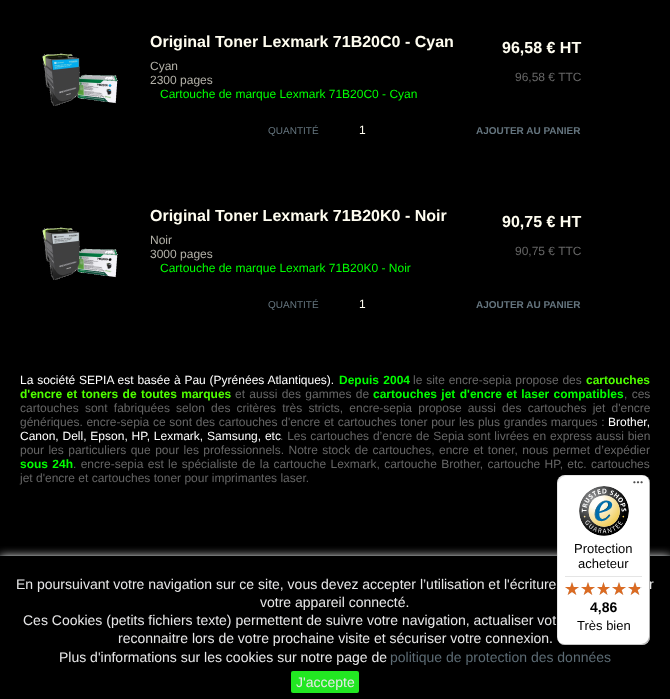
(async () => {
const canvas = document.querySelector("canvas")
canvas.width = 670
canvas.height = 699
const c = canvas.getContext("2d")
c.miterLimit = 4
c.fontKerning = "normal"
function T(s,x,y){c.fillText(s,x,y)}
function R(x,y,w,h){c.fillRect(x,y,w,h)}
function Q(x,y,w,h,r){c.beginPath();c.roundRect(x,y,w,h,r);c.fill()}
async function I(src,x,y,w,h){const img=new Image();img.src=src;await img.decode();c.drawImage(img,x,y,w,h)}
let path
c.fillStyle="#000"
R(0,0,670,699)
await I("1.png",42,53,76,53)
c.font="bold 16px Liberation Sans"
c.fillStyle="#fffdf0"
T("Original Toner Lexmark 71B20C0 - Cyan",150,47)
T("96,58 € HT",502,53)
c.font="12px Liberation Sans"
c.fillStyle="#666"
T("96,58 € TTC",515,81)
c.fillStyle="#b3b1a8"
T("Cyan",150,70)
T("2300 pages",150,84)
c.fillStyle="#0f0"
T("Cartouche de marque Lexmark 71B20C0 - Cyan",160,98)
c.font="10px Liberation Sans"
c.fillStyle="#65757f"
T("QUANTITÉ",268,134)
c.font="12px Liberation Sans"
c.fillStyle="#fffdf0"
T("1",359,134)
c.font="bold 10px Liberation Sans"
c.fillStyle="#65757f"
T("AJOUTER AU PANIER",476,134)
await I("2.png",42,227,76,53)
c.font="bold 16px Liberation Sans"
c.fillStyle="#fffdf0"
T("Original Toner Lexmark 71B20K0 - Noir",150,221)
T("90,75 € HT",502,227)
c.font="12px Liberation Sans"
c.fillStyle="#666"
T("90,75 € TTC",515,255)
c.fillStyle="#b3b1a8"
T("Noir",150,244)
T("3000 pages",150,258)
c.fillStyle="#0f0"
T("Cartouche de marque Lexmark 71B20K0 - Noir",160,272)
c.font="10px Liberation Sans"
c.fillStyle="#65757f"
T("QUANTITÉ",268,308)
c.font="12px Liberation Sans"
c.fillStyle="#fffdf0"
T("1",359,308)
c.font="bold 10px Liberation Sans"
c.fillStyle="#65757f"
T("AJOUTER AU PANIER",476,308)
c.wordSpacing="0.5px"
c.font="12px Liberation Sans"
c.fillStyle="#fff"
T("La société SEPIA est basée à Pau (Pyrénées Atlantiques).",20,384)
c.wordSpacing="1px"
c.font="bold 12px Liberation Sans"
c.fillStyle="#0f0"
T("Depuis 2004",339,384)
c.wordSpacing="0.5px"
c.font="12px Liberation Sans"
c.fillStyle="#666"
T("le site encre-sepia propose des",413,384)
c.wordSpacing="0px"
c.font="bold 12px Liberation Sans"
c.fillStyle="#4fff00"
T("cartouches",586,384)
c.wordSpacing="1px"
T("d'encre et toners de toutes marques",20,398)
c.font="12px Liberation Sans"
c.fillStyle="#666"
T("et aussi des gammes de",235,398)
c.font="bold 12px Liberation Sans"
c.fillStyle="#0f0"
T("cartouches jet d'encre et laser compatibles",373,398)
c.font="12px Liberation Sans"
c.fillStyle="#666"
T(", ces",624,398)
c.wordSpacing="2.9px"
T("cartouches sont fabriquées selon des critères très stricts, encre-sepia propose aussi des cartouches jet d'encre",20,412)
c.wordSpacing="0.4px"
T("génériques. encre-sepia ce sont des cartouches d'encre et cartouches toner pour les plus grandes marques :",20,426)
c.wordSpacing="0px"
c.fillStyle="#fff"
T("Brother,",608,426)
c.wordSpacing="0.5px"
T("Canon, Dell, Epson, HP, Lexmark, Samsung, etc",20,440)
c.fillStyle="#666"
T(". Les cartouches d’encre de Sepia sont livrées en express aussi bien",280,440)
c.wordSpacing="1.1px"
T("pour les particuliers que pour les professionnels. Notre stock de cartouches, encre et toner, nous permet d’expédier",20,454)
c.wordSpacing="1px"
c.font="bold 12px Liberation Sans"
c.fillStyle="#0f0"
T("sous 24h",20,468)
c.font="12px Liberation Sans"
c.fillStyle="#666"
T(". encre-sepia est le spécialiste de la cartouche Lexmark, cartouche Brother, cartouche HP, etc. cartouches",73,468)
c.wordSpacing="0px"
T("jet d'encre et cartouches toner pour imprimantes laser.",20,482)
c.fillStyle="#0f1314"
R(0,555,670,1)
c.fillStyle="#00000026"
c.filter="blur(4px)"
c.beginPath()
c.roundRect(560,478,93,170,8)
c.fill()
c.filter="none"
c.filter="blur(1px)"
c.beginPath()
c.roundRect(558,476,93,170,8)
c.fill()
c.filter="none"
c.save()
c.beginPath()
c.rect(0,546,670,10)
c.clip()
c.fillStyle="#ffffffe6"
c.filter="blur(5px)"
c.beginPath()
c.rect(0,556,670,143)
c.fill()
c.filter="none"
c.restore()
c.fillStyle="#fff"
Q(557,475,93,170,8)
c.fillStyle="#0000001a"
path = new Path2D("M566 476h77c2 0 4 1 6 3c-2-2-4-4-7-4h-77c-4 0-8 4-8 8v154c0 3 2 5 4 7c-2-2-3-4-3-6v-154c0-4 4-8 8-8z")
c.fill(path)
c.fillStyle="#00000033"
path = new Path2D("M558 641c2 2 4 4 7 4h77c4 0 8-4 8-8v-154c0-3-2-5-4-7c2 2 3 4 3 6v154c0 4-4 8-8 8h-77c-2 0-4-1-6-3z")
c.fill(path)
c.fillStyle="#32323233"
path = new Path2D("M559 642c1 2 4 3 6 3h77c4 0 8-4 8-8v-154c0-2-1-5-3-6c1 1 2 3 2 5v154c0 5-3 8-8 8h-77c-2 0-4-1-5-2z")
c.fill(path)
await I("3.png",633,481,10,3)
c.fillStyle="#ffffff4d"
path = new Path2D("M559 642c1 2 4 3 6 3h77c4 0 8-4 8-8v-1c0 5-4 8-8 8h-78c-2 0-4-1-5-2z")
c.fill(path)
await I("4.png",579,486,50,50)
c.font="13px Liberation Sans"
c.fillStyle="#000"
T("Protection",574,553)
T("acheteur",578,568)
c.fillStyle="#e5e5e5"
R(565,576,77,1)
await I("5.png",565,582,14,13)
await I("5.png",581,582,14,13)
await I("6.png",597,582,13,13)
await I("5.png",612,582,14,13)
await I("5.png",628,582,14,13)
await I("7.png",565,582,14,13)
await I("7.png",581,582,14,13)
await I("8.png",597,582,13,13)
await I("7.png",612,582,14,13)
await I("9.png",628,582,12,13)
c.font="bold 14px Liberation Sans"
c.fillStyle="#000"
T("4,86",590,612)
c.font="13px Liberation Sans"
T("Très bien",577,630)
c.font="14px Liberation Sans"
c.fillStyle="#e7e7e8"
T("En poursuivant votre navigation sur ce site, vous devez accepter l’utilisation et l'écriture",16,589)
T("r",649,589)
T("votre appareil connecté.",260,607)
T("Ces Cookies (petits fichiers texte) permettent de suivre votre navigation, actualiser vot",23,625)
T("reconnaitre lors de votre prochaine visite et sécuriser votre connexion.",118,643)
T("Plus d'informations sur les cookies sur notre page de",59,662)
c.fillStyle="#5c6b74"
T("politique de protection des données",390,662)
c.fillStyle="#22e722"
Q(291,671,68,22,2)
c.fillStyle="#e7e7e8"
T("J'accepte",296,687)
})()
